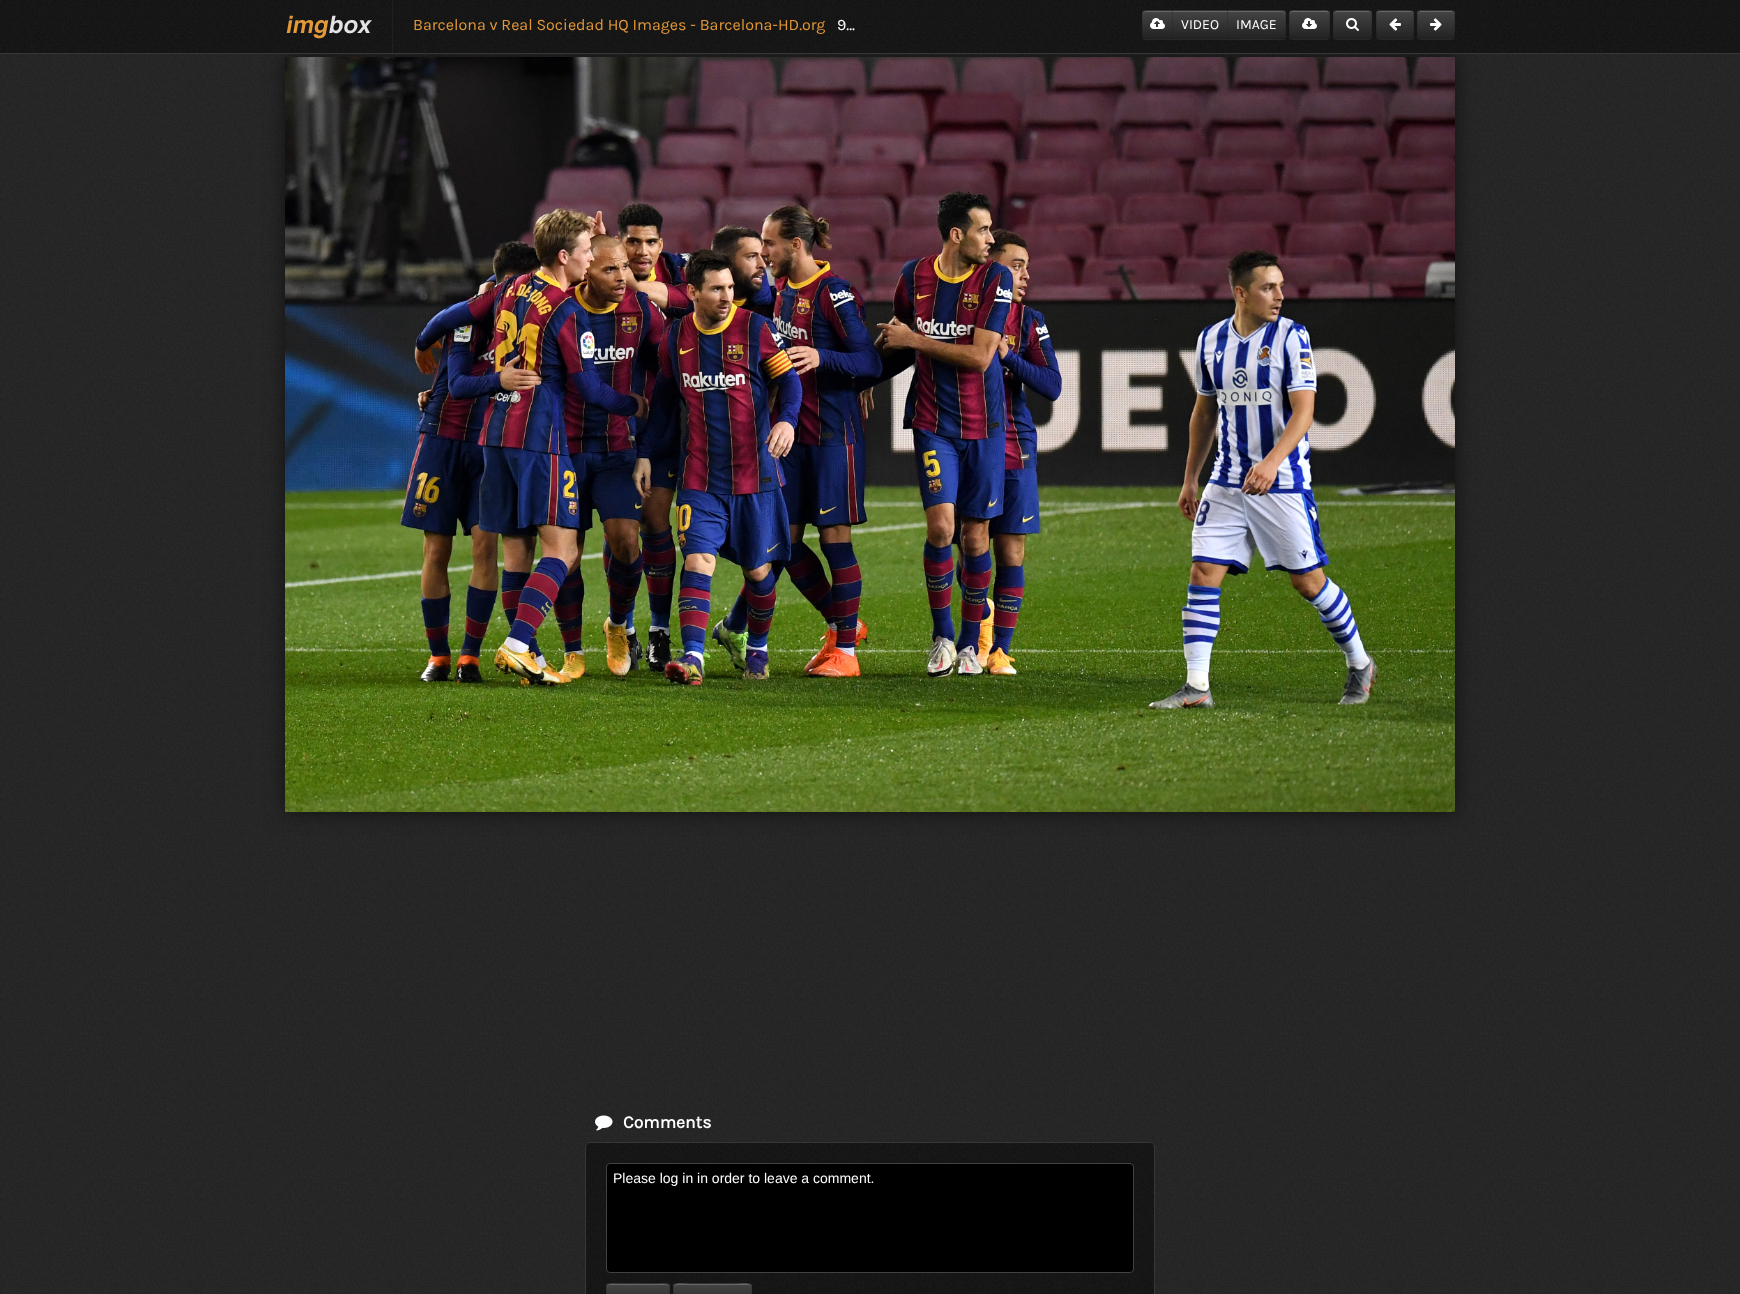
(async () => {
const canvas = document.querySelector("canvas")
canvas.width = 1740
canvas.height = 1294
const c = canvas.getContext("2d")
c.miterLimit = 4
c.fontKerning = "normal"
function T(s,x,y){c.fillText(s,x,y)}
function R(x,y,w,h){c.fillRect(x,y,w,h)}
function Q(x,y,w,h,r){c.beginPath();c.roundRect(x,y,w,h,r);c.fill()}
async function I(src,x,y,w,h){const img=new Image();img.src=src;await img.decode();c.drawImage(img,x,y,w,h)}
let gradient, path
c.fillStyle="#262626"
R(0,0,1740,1294)
await I("1.png",0,54,1739,1240)
c.fillStyle="#111"
c.filter="blur(10px)"
c.beginPath()
c.rect(285,57,1170,755)
c.fill()
c.filter="none"
await I("2.png",0,0,1740,53)
c.fillStyle="#373737"
R(0,53,1740,1)
await I("3.png",286,15,86,24)
c.fillStyle="#202020"
R(392,0,1,53)
c.font="16px Karla"
c.fillStyle="#e39938"
T("Barcelona v Real Sociedad HQ Images - Barcelona-HD.org",413,30)
c.fillStyle="#fdfeff"
T("9…",837,30)
c.fillStyle="#363636"
c.beginPath()
c.roundRect(1142,10,31,30,[4,0,0,4])
c.fill()
c.save()
c.beginPath()
c.roundRect(1142,10,31,30,[4,0,0,4])
c.clip()
gradient = c.createLinearGradient(1158,11,1158,39)
gradient.addColorStop(0,"#444")
gradient.addColorStop(1,"#222")
c.fillStyle = gradient
R(1142,11,30,28)
c.restore()
c.fillStyle="#696969"
path = new Path2D("M1146 12h26v-1h-26c-1.5 0-3 1.5-3 3v1c0-2 1-3 3-3z")
c.fill(path)
c.fillStyle="#0000001a"
path = new Path2D("M1146 10c-1 0-2 .5-3 1l1 1c.5-.5 1-1 2-1h26l1-1z")
c.fill(path)
c.fillStyle="#00000040"
path = new Path2D("M1173 40l-1-1h-26c-1 0-1.5-.5-2-1l-1 1c1 .5 2 1 3 1z")
c.fill(path)
c.fillStyle="#0000001a"
path = new Path2D("M1142 14v22c0 1 .5 2 1 3l1-1c-.5-.5-1-1-1-2v-22c0-1 .5-1.5 1-2l-1-1c-.5 1-1 2-1 3z")
c.fill(path)
await I("4.png",1150,18,15,11)
c.fillStyle="#363636"
R(1172,10,55,30)
gradient = c.createLinearGradient(1200,11,1200,39)
gradient.addColorStop(0,"#444")
gradient.addColorStop(1,"#222")
c.fillStyle = gradient
R(1172,11,55,28)
c.fillStyle="#696969"
R(1173,11,54,1)
c.fillStyle="#313131"
path = new Path2D("M1172 10h56l-1 1h-54z")
c.fill(path)
c.fillStyle="#00000040"
path = new Path2D("M1228 40h-56l1-1h54z")
c.fill(path)
c.fillStyle="#0000001a"
path = new Path2D("M1172 40v-30l1 1v28z")
c.fill(path)
c.font="14px Karla"
c.fillStyle="#fdfeff"
T("VIDEO",1181,29)
c.fillStyle="#363636"
c.beginPath()
c.roundRect(1227,10,59,30,[0,4,4,0])
c.fill()
c.save()
c.beginPath()
c.roundRect(1227,10,59,30,[0,4,4,0])
c.clip()
gradient = c.createLinearGradient(1257,11,1257,39)
gradient.addColorStop(0,"#444")
gradient.addColorStop(1,"#222")
c.fillStyle = gradient
R(1227,11,59,28)
c.restore()
c.fillStyle="#696969"
path = new Path2D("M1228 12h54c2 0 3 1 3 3v-1c0-2-1-3-3-3h-54z")
c.fill(path)
c.fillStyle="#0000001a"
path = new Path2D("M1227 10l1 1c6 0 54-1 56 1l1-1l-3-1z")
c.fill(path)
path = new Path2D("M1286 36v-22c0-1-.5-2-1-3l-1 1c1 0 1 1 1 2v22c0 1 0 2-1 2l1 1c.5-1 1-2 1-3z")
c.fill(path)
c.fillStyle="#00000040"
path = new Path2D("M1282 40l3-1l-1-1c-2 2-50 1-56 1l-1 1z")
c.fill(path)
c.fillStyle="#0000001a"
path = new Path2D("M1227 10v30l1-1v-28z")
c.fill(path)
c.fillStyle="#fdfeff"
T("IMAGE",1236,29)
c.fillStyle="#363636"
Q(1289,10,41,30,4)
c.save()
c.beginPath()
c.roundRect(1289,10,41,30,4)
c.clip()
gradient = c.createLinearGradient(1310,11,1310,39)
gradient.addColorStop(0,"#444")
gradient.addColorStop(1,"#222")
c.fillStyle = gradient
R(1289,11,41,28)
c.restore()
c.fillStyle="#696969"
path = new Path2D("M1293 12h33c2 0 3 1 3 3c0-5.5-4-4-8.5-4h-22c-4.5 0-8.5-1.5-8.5 4c0-2 1-3 3-3z")
c.fill(path)
path = new Path2D("M1328.5 38.5c-.5 .5-1.5 1-2.5 1h-33c-1 0-2-.5-2.5-1")
c.strokeStyle="#00000040"
c.stroke(path)
path = new Path2D("M1290.5 38.5c-2-2-1-10.5-1-13.5c0-19-1.5-14.5 20-14.5c21.5 0 20-4.5 20 14.5c0 3 1 11.5-1 13.5")
c.strokeStyle="#0000001a"
c.stroke(path)
await I("5.png",1302,18,15,11)
c.fillStyle="#363636"
Q(1333,10,39,30,4)
c.save()
c.beginPath()
c.roundRect(1333,10,39,30,4)
c.clip()
gradient = c.createLinearGradient(1353,11,1353,39)
gradient.addColorStop(0,"#444")
gradient.addColorStop(1,"#222")
c.fillStyle = gradient
R(1333,11,39,28)
c.restore()
c.fillStyle="#696969"
path = new Path2D("M1337 12h31c2 0 3 1 3 3c0-5-4-4-8-4h-21c-4 0-8-1-8 4c0-2 1-3 3-3z")
c.fill(path)
path = new Path2D("M1370.5 38.5c-.5 .5-1.5 1-2.5 1h-31c-1 0-2-.5-2.5-1")
c.strokeStyle="#00000040"
c.stroke(path)
path = new Path2D("M1334.5 38.5c-.5-.5-1-1.5-1-2.5v-22c0-1 .5-2 1-2.5c.5-.5 1.5-1 2.5-1h31c1 0 2 .5 2.5 1c.5 .5 1 1.5 1 2.5v22c0 1-.5 2-1 2.5")
c.strokeStyle="#0000001a"
c.stroke(path)
await I("6.png",1346,18,13,13)
c.fillStyle="#363636"
Q(1376,10,38,30,4)
c.save()
c.beginPath()
c.roundRect(1376,10,38,30,4)
c.clip()
gradient = c.createLinearGradient(1395,11,1395,39)
gradient.addColorStop(0,"#444")
gradient.addColorStop(1,"#222")
c.fillStyle = gradient
R(1376,11,38,28)
c.restore()
c.fillStyle="#696969"
path = new Path2D("M1380 12h30c2 0 3 1 3 3c0-5-4-4-8-4h-20c-4 0-8-1-8 4c0-2 1-3 3-3z")
c.fill(path)
path = new Path2D("M1412.5 38.5c-.5 .5-1.5 1-2.5 1h-30c-1 0-2-.5-2.5-1")
c.strokeStyle="#00000040"
c.stroke(path)
path = new Path2D("M1377.5 38.5c-.5-.5-1-1.5-1-2.5v-22c0-1 .5-2 1-2.5c.5-.5 1.5-1 2.5-1h30c1 0 2 .5 2.5 1c.5 .5 1 1.5 1 2.5v22c0 1-.5 2-1 2.5")
c.strokeStyle="#0000001a"
c.stroke(path)
await I("7.png",1389,18,12,13)
c.fillStyle="#363636"
Q(1417,10,38,30,4)
c.save()
c.beginPath()
c.roundRect(1417,10,38,30,4)
c.clip()
gradient = c.createLinearGradient(1436,11,1436,39)
gradient.addColorStop(0,"#444")
gradient.addColorStop(1,"#222")
c.fillStyle = gradient
R(1417,11,38,28)
c.restore()
c.fillStyle="#696969"
path = new Path2D("M1421 12h30c2 0 3 1 3 3c0-5-4-4-8-4h-20c-4 0-8-1-8 4c0-2 1-3 3-3z")
c.fill(path)
path = new Path2D("M1453.5 38.5c-.5 .5-1.5 1-2.5 1h-30c-1 0-2-.5-2.5-1")
c.strokeStyle="#00000040"
c.stroke(path)
path = new Path2D("M1418.5 38.5c-.5-.5-1-1.5-1-2.5v-22c0-1 .5-2 1-2.5c.5-.5 1.5-1 2.5-1h30c1 0 2 .5 2.5 1c.5 .5 1 1.5 1 2.5v22c0 1-.5 2-1 2.5")
c.strokeStyle="#0000001a"
c.stroke(path)
await I("8.png",1430,18,12,13)
await I("9.png",285,57,1170,755)
await I("10.png",595,1115,18,16)
c.font="bold 17.5px Karla"
c.fillStyle="#fdfeff"
T("Comments",623,1128)
await I("11.png",585,1142,570,152)
c.beginPath()
c.roundRect(585.5,1142.5,569,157,4.5)
c.strokeStyle="#373737"
c.stroke()
c.fillStyle="#000"
c.beginPath()
c.roundRect(606.5,1163.5,527,109,3.5)
c.fill()
c.strokeStyle="#424242"
c.stroke()
c.font="14px Liberation Sans"
c.fillStyle="#fdfeff"
T("Please log in in order to leave a comment.",613,1183)
c.fillStyle="#363636"
Q(606,1283,64,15,4)
c.save()
c.beginPath()
c.roundRect(606,1283,64,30,4)
c.clip()
gradient = c.createLinearGradient(638,1284,638,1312)
gradient.addColorStop(0,"#444")
gradient.addColorStop(1,"#222")
c.fillStyle = gradient
R(606,1284,64,10)
c.restore()
c.fillStyle="#696969"
path = new Path2D("M610 1285h56c2 0 3 1 3 3c0-6-8-4-12-4h-38c-4 0-12-2-12 4c0-2 1-3 3-3z")
c.fill(path)
path = new Path2D("M607.5 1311.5c-2-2-1-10.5-1-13.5c0-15.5-2.5-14.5 13-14.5h37c15.5 0 13-1 13 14.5c0 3 1 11.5-1 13.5")
c.strokeStyle="#0000001a"
c.stroke(path)
c.fillStyle="#363636"
Q(673,1283,79,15,4)
c.save()
c.beginPath()
c.roundRect(673,1283,79,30,4)
c.clip()
gradient = c.createLinearGradient(713,1284,713,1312)
gradient.addColorStop(0,"#444")
gradient.addColorStop(1,"#222")
c.fillStyle = gradient
R(673,1284,79,10)
c.restore()
c.fillStyle="#ffffff33"
path = new Path2D("M677 1285h71c2 0 3 1 3 3c0-7-11-4-15-4h-47c-4 0-15-3-15 4c0-2 1-3 3-3z")
c.fill(path)
path = new Path2D("M674.5 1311.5c-2-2-1-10.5-1-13.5c0-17-2.5-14.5 15.5-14.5h47c18 0 15.5-2.5 15.5 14.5c0 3 1 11.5-1 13.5")
c.stroke(path)
})()
